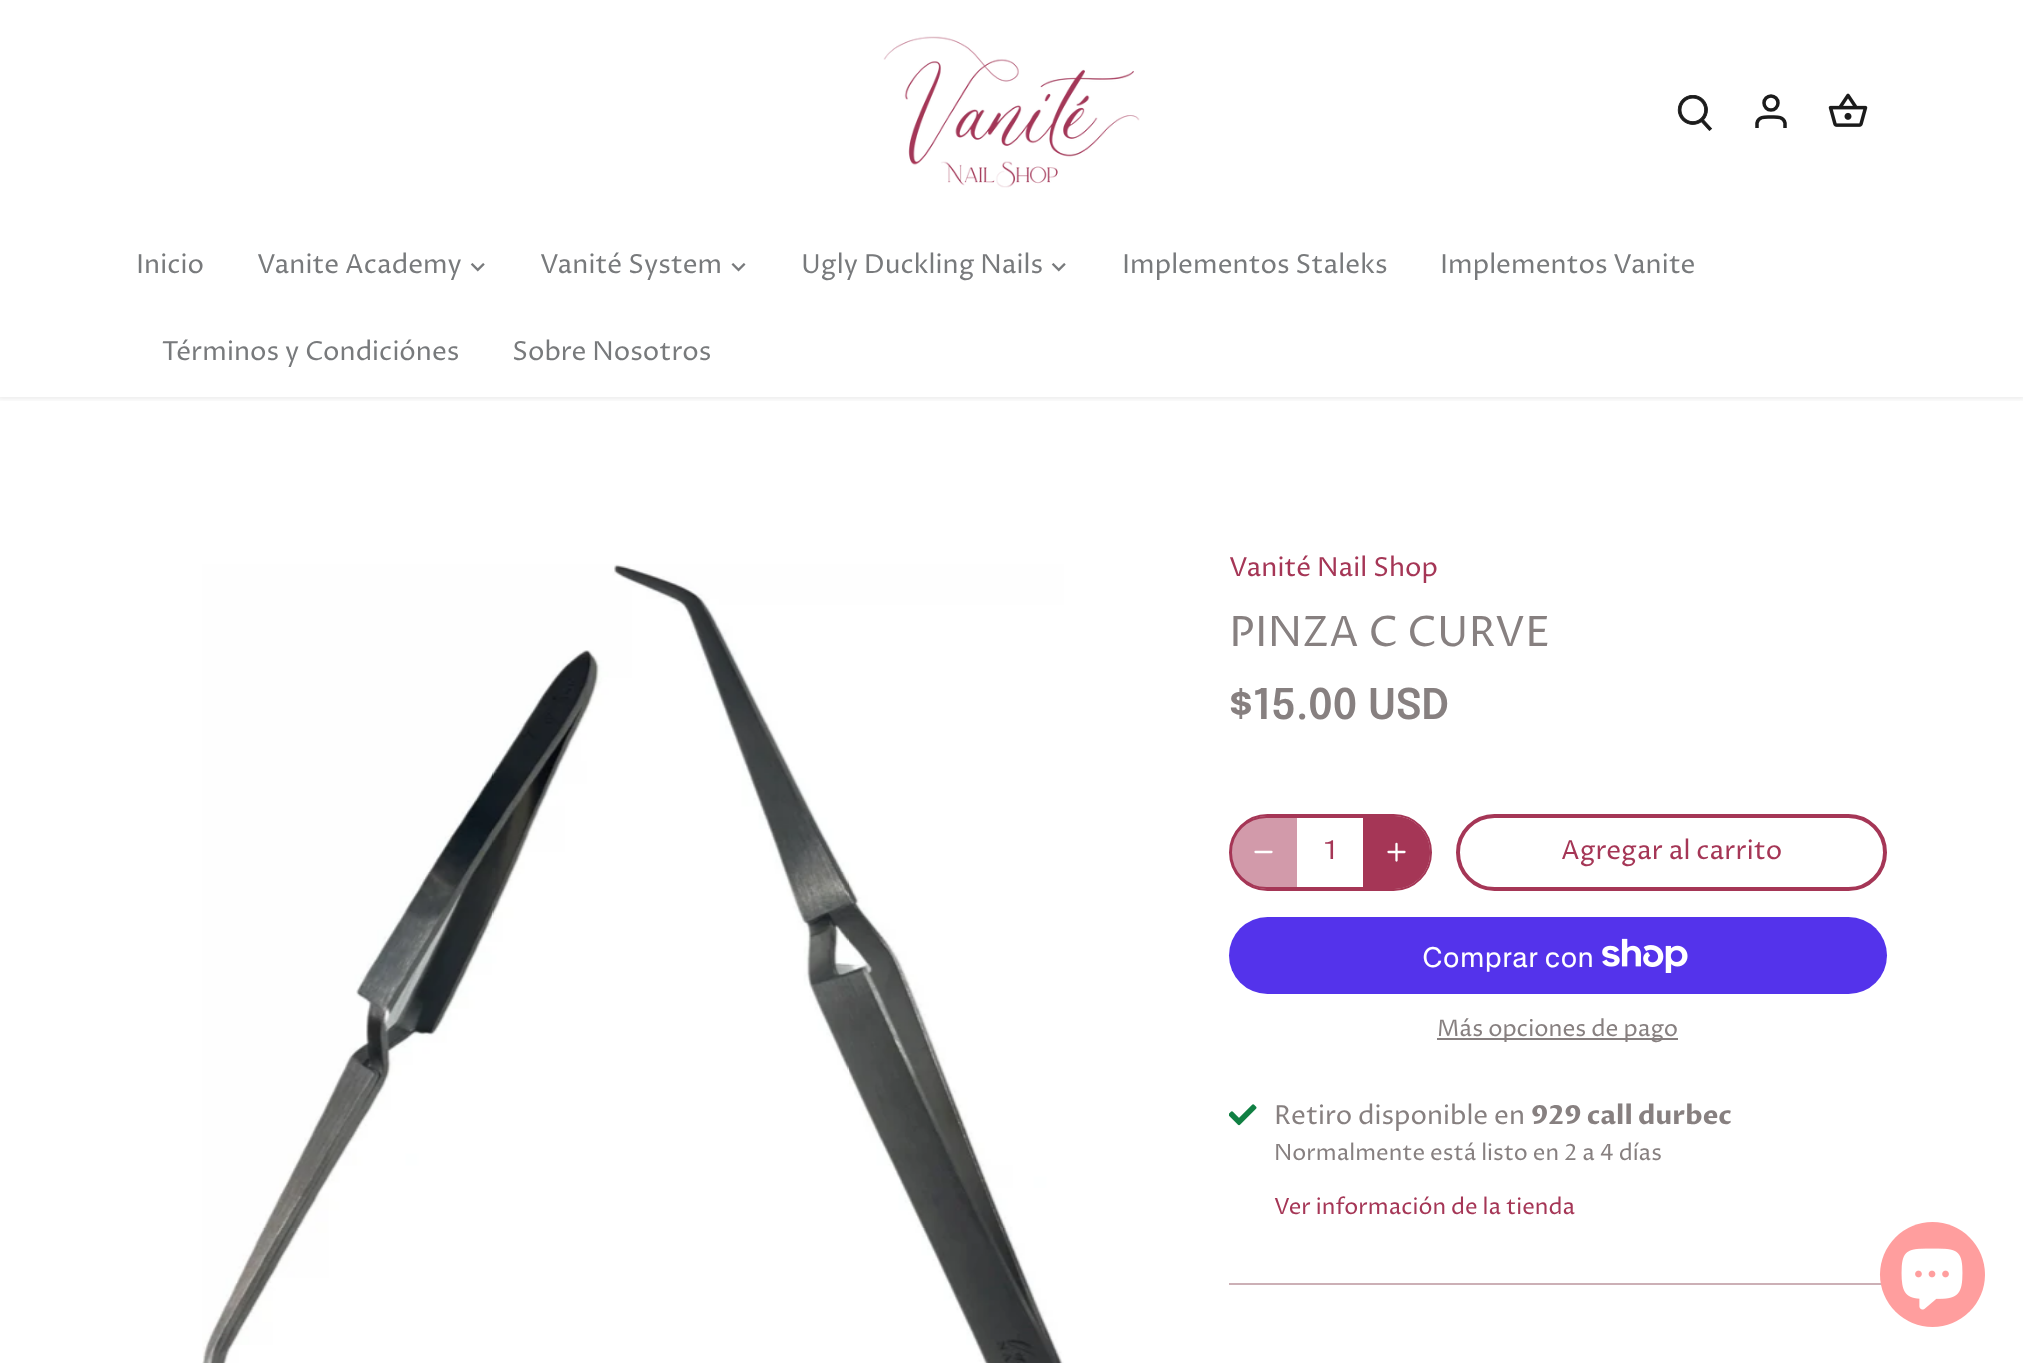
(async () => {
const canvas = document.querySelector("canvas")
canvas.width = 2023
canvas.height = 1363
const c = canvas.getContext("2d")
c.miterLimit = 4
c.fontKerning = "normal"
function T(s,x,y){c.fillText(s,x,y)}
function R(x,y,w,h){c.fillRect(x,y,w,h)}
function Q(x,y,w,h,r){c.beginPath();c.roundRect(x,y,w,h,r);c.fill()}
async function I(src,x,y,w,h){const img=new Image();img.src=src;await img.decode();c.drawImage(img,x,y,w,h)}
let path
c.fillStyle="#fff"
R(0,0,2023,1363)
c.save()
c.beginPath()
c.rect(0,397,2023,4)
c.clip()
c.fillStyle="#00000014"
c.filter="blur(2.5px)"
c.beginPath()
c.rect(-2,-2,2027,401)
c.fill()
c.filter="none"
c.restore()
await I("1.png",883,36,257,152)
await I("2.png",1677,95,36,36)
c.beginPath()
c.arc(1771,103,7,0,7)
c.strokeStyle="#1b1b1b"
c.lineWidth=3.5
c.stroke()
path = new Path2D("M1785 128v-5c-1.5-7-9-6-14-6c-5 0-12.5-1-14 6v5")
c.stroke(path)
await I("3.png",1828,93,40,34)
c.font="26.25px Proza Libre"
c.fillStyle="#787a7c"
T("Inicio",136,273)
T("Vanite Academy",257,273)
await I("4.png",470,263,15,9)
T("Vanité System",540,273)
await I("5.png",731,263,15,9)
T("Ugly Duckling Nails",801,273)
await I("4.png",1051,263,15,9)
T("Implementos Staleks",1122,273)
T("Implementos Vanite",1440,273)
T("Términos y Condiciónes",162,360)
T("Sobre Nosotros",512,360)
await I("6.png",202,564,862,799)
c.fillStyle="#a53656"
T("Vanité Nail Shop",1229,576)
c.font="42px Proza Libre"
c.fillStyle="#878080"
T("PINZA C CURVE",1229,646)
c.font="600 42px Epilogue"
T("$15.00 USD",1229,719)
c.beginPath()
c.roundRect(1231,817,198,71,35.5)
c.strokeStyle="#a53656"
c.lineWidth=2
c.stroke()
c.beginPath()
c.roundRect(1230,815,201,75,37.5)
c.stroke()
c.fillStyle="#a5365680"
c.beginPath()
c.roundRect(1230,816,67,73,[36.5,0,0,36.5])
c.fill()
path = new Path2D("M1255.5 852h16")
c.strokeStyle="#fff"
c.lineWidth=2.3
c.lineCap="round"
c.lineJoin="round"
c.stroke(path)
c.font="26.25px Proza Libre"
c.fillStyle="#a53656"
T("1",1324,859)
c.beginPath()
c.roundRect(1363,816,67,73,[0,36.5,36.5,0])
c.fill()
path = new Path2D("M1396.5 844v16.5m-8-8.5h16")
c.stroke(path)
c.beginPath()
c.roundRect(1458,816,427,73,36.5)
c.strokeStyle="#a53656"
c.lineWidth=4
c.lineJoin="miter"
c.stroke()
T("Agregar al carrito",1561,859)
c.fillStyle="#5433eb"
Q(1229,917,658,77,38.5)
c.font="28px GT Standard"
c.fillStyle="#fff"
T("Comprar con",1422,967)
await I("7.png",1602,938,86,35)
c.fillStyle="#878080"
R(1437,1038,241,2)
c.font="22.75px Proza Libre"
T("Más opciones de pago",1437,1036)
await I("8.png",1229,1104,28,22)
c.font="26.25px Proza Libre"
T("Retiro disponible en",1274,1124)
c.font="bold 26.25px Proza Libre"
T("929 call durbec",1531,1124)
c.font="22.3px Proza Libre"
T("Normalmente está listo en 2 a 4 días",1274,1160)
c.fillStyle="#a53656"
T("Ver información de la tienda",1274,1214)
c.fillStyle="#ccb0b6"
R(1229,1283,658,2)
c.fillStyle="#ff9e9e"
c.beginPath()
c.arc(1932.5,1274.5,52.5,0,7)
c.fill()
await I("9.png",1901,1248,62,62)
})()
